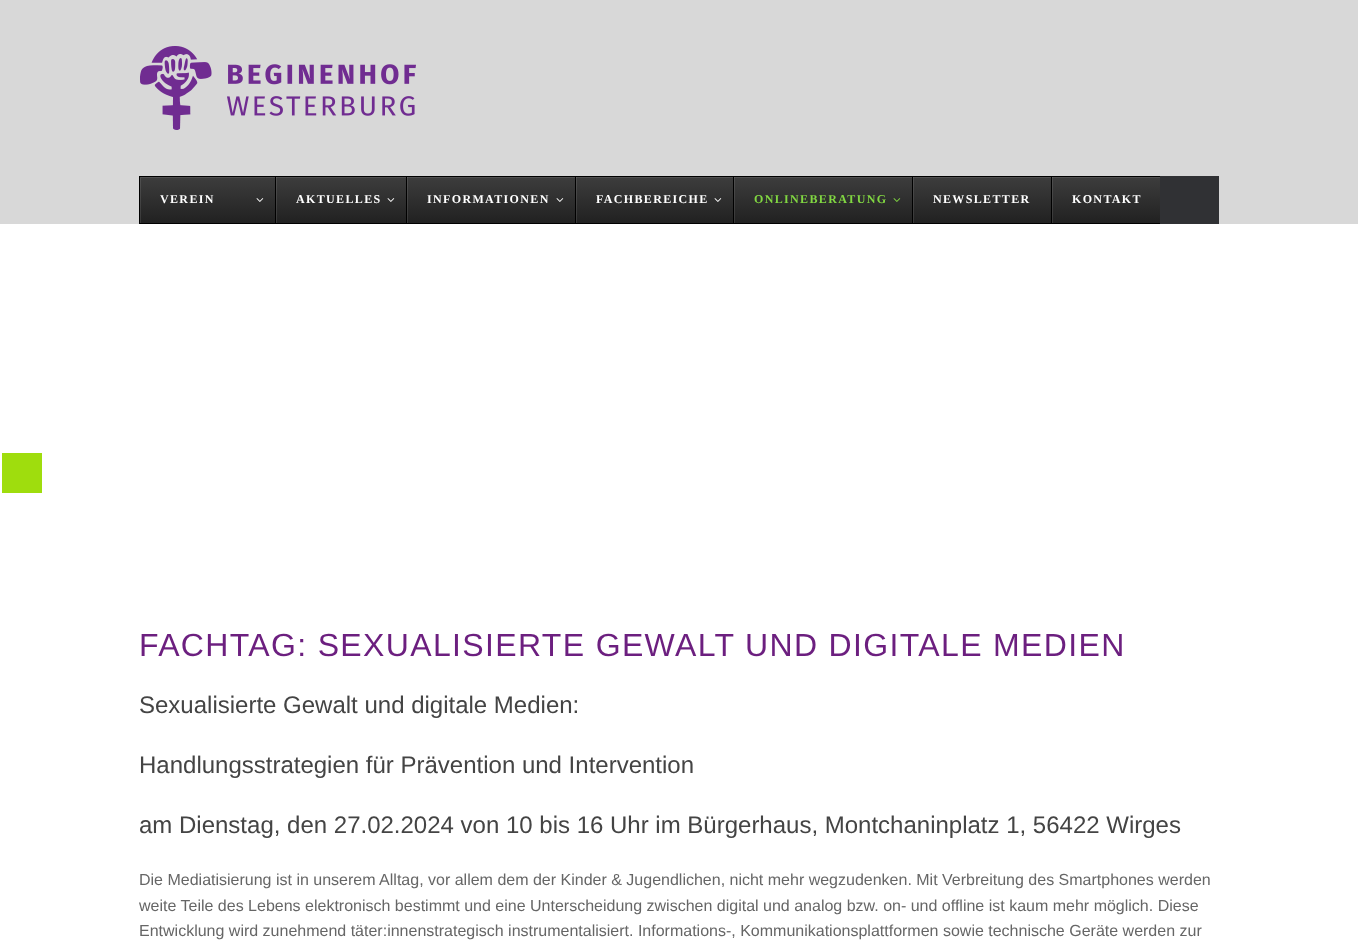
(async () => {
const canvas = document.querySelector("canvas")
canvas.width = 1358
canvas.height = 946
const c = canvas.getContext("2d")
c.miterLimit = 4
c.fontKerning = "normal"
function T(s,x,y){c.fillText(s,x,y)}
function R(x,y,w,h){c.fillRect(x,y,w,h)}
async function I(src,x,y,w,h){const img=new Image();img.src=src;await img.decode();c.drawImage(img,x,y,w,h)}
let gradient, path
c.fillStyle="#d8d8d8"
R(0,0,1358,946)
c.fillStyle="#fff"
R(0,224,1358,722)
c.fillStyle="#9fdd0d"
R(2,453,40,40)
await I("1.png",140,46,276,84)
gradient = c.createLinearGradient(679,177,679,223)
gradient.addColorStop(0,"#3d3d3d")
gradient.addColorStop(1,"#212121")
c.fillStyle = gradient
R(140,177,1020,46)
c.save()
c.beginPath()
c.rect(140,177,1078,46)
c.clip()
c.fillStyle="#ffffff1a"
path = new Path2D("M41 78h1276v244h-1276zm100 100h1078v46h-1078z")
c.fill(path,"evenodd")
c.restore()
c.strokeStyle="#000"
c.strokeRect(139.5,176.5,1079,47)
c.letterSpacing="1.35px"
c.font="bold 12px Liberation Serif"
c.fillStyle="#fff"
T("VEREIN",160,203)
await I("2.png",256,198,8,4)
c.fillStyle="#ffffff1a"
R(276,177,1,46)
c.fillStyle="#000"
R(275,177,1,46)
c.fillStyle="#fff"
T("AKTUELLES",296,203)
await I("2.png",387,198,8,4)
c.fillStyle="#ffffff1a"
R(407,177,1,46)
c.fillStyle="#000"
R(406,177,1,46)
c.fillStyle="#fff"
T("INFORMATIONEN",427,203)
await I("2.png",556,198,8,4)
c.fillStyle="#ffffff1a"
R(576,177,1,46)
c.fillStyle="#000"
R(575,177,1,46)
c.fillStyle="#fff"
T("FACHBEREICHE",596,203)
await I("2.png",714,198,8,4)
c.fillStyle="#ffffff1a"
R(734,177,1,46)
c.fillStyle="#000"
R(733,177,1,46)
c.fillStyle="#81d742"
T("ONLINEBERATUNG",754,203)
await I("3.png",893,198,8,4)
c.fillStyle="#ffffff1a"
R(913,177,1,46)
c.fillStyle="#000"
R(912,177,1,46)
c.fillStyle="#fff"
T("NEWSLETTER",933,203)
c.fillStyle="#ffffff1a"
R(1052,177,1,46)
c.fillStyle="#000"
R(1051,177,1,46)
c.fillStyle="#fff"
T("KONTAKT",1072,203)
c.fillStyle="#303134"
R(1160,176,59,48)
c.font="32px Liberation Sans"
c.fillStyle="#6c1f7f"
T("FACHTAG: SEXUALISIERTE GEWALT UND DIGITALE MEDIEN",139,656)
c.letterSpacing="0px"
c.font="24px Liberation Sans"
c.fillStyle="#444"
T("Sexualisierte Gewalt und digitale Medien:",139,713)
T("Handlungsstrategien für Prävention und Intervention",139,773)
T("am Dienstag, den 27.02.2024 von 10 bis 16 Uhr im Bürgerhaus, Montchaninplatz 1, 56422 Wirges",139,833)
c.font="16px Liberation Sans"
c.fillStyle="#666"
T("Die Mediatisierung ist in unserem Alltag, vor allem dem der Kinder & Jugendlichen, nicht mehr wegzudenken. Mit Verbreitung des Smartphones werden",139,885)
T("weite Teile des Lebens elektronisch bestimmt und eine Unterscheidung zwischen digital und analog bzw. on- und offline ist kaum mehr möglich. Diese",139,911)
T("Entwicklung wird zunehmend täter:innenstrategisch instrumentalisiert. Informations-, Kommunikationsplattformen sowie technische Geräte werden zur",139,936)
})()
